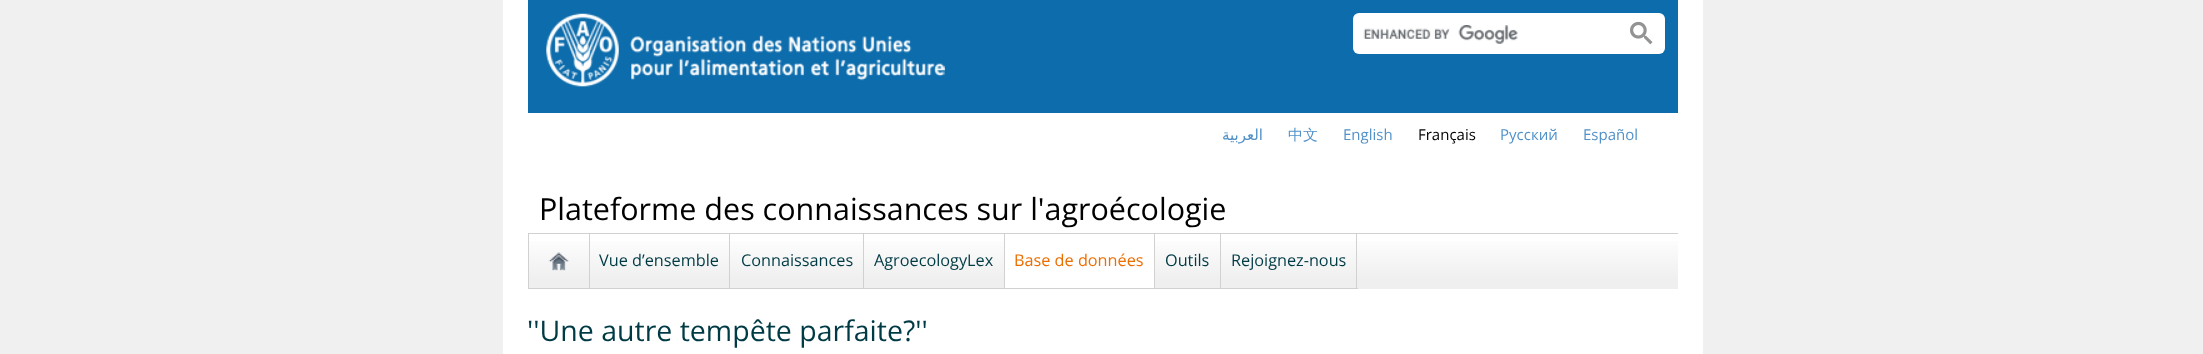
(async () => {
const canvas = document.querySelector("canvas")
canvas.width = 2203
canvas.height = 354
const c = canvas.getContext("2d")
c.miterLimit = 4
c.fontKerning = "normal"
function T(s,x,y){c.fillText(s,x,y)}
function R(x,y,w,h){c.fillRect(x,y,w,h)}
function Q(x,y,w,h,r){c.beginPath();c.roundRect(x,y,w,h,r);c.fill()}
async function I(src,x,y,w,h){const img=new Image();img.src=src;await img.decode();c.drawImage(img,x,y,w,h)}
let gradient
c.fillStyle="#f0f0f0"
R(0,0,2203,354)
c.fillStyle="#fff"
R(503,0,1200,354)
c.fillStyle="#0d6cac"
R(528,0,1150,113)
await I("1.png",546,13,399,74)
c.fillStyle="#fff"
Q(1353,13,312,41,6)
await I("2.png",1363,25,155,19)
await I("3.png",1630,21,23,24)
c.direction="rtl"
c.font="15px DejaVu Sans"
c.fillStyle="#5191c8"
T("العربية",1263,140)
c.direction="ltr"
c.font="500 15px WenQuanYi Zen Hei"
T("中文",1288,140)
c.font="15px Open Sans"
T("English",1343,140)
c.fillStyle="#000"
T("Français",1418,140)
c.fillStyle="#5191c8"
T("Русский",1500,140)
T("Español",1583,140)
c.font="30.5px Open Sans"
c.fillStyle="#000"
T("Plateforme des connaissances sur l'agroécologie",539,220)
gradient = c.createLinearGradient(1103,234,1103,289)
gradient.addColorStop(0,"#fff")
gradient.addColorStop(.84,"#efefef")
c.fillStyle = gradient
R(529,241,1149,48)
c.fillStyle="#d2d0d0"
R(528,233,1150,1)
R(589,234,1,55)
R(528,288,62,1)
R(528,234,1,55)
await I("4.png",548,252,21,19)
R(729,234,1,55)
R(590,288,140,1)
c.font="16.25px Open Sans"
c.fillStyle="#003b45"
T("Vue d’ensemble",599,266)
c.fillStyle="#d2d0d0"
R(863,234,1,55)
R(730,288,134,1)
c.fillStyle="#003b45"
T("Connaissances",741,266)
c.fillStyle="#d2d0d0"
R(1004,234,1,55)
R(864,288,141,1)
c.fillStyle="#003b45"
T("AgroecologyLex",874,266)
c.fillStyle="#fff"
R(1005,241,149,47)
c.fillStyle="#d2d0d0"
R(1154,234,1,55)
R(1005,288,150,1)
c.fillStyle="#ec6e00"
T("Base de données",1014,266)
c.fillStyle="#d2d0d0"
R(1220,234,1,55)
R(1155,288,66,1)
c.fillStyle="#003b45"
T("Outils",1165,266)
c.fillStyle="#d2d0d0"
R(1356,234,1,55)
R(1221,288,137,1)
c.fillStyle="#003b45"
T("Rejoignez-nous",1231,266)
c.font="28.5px Open Sans"
T("''Une autre tempête parfaite?''",527,341)
})()
